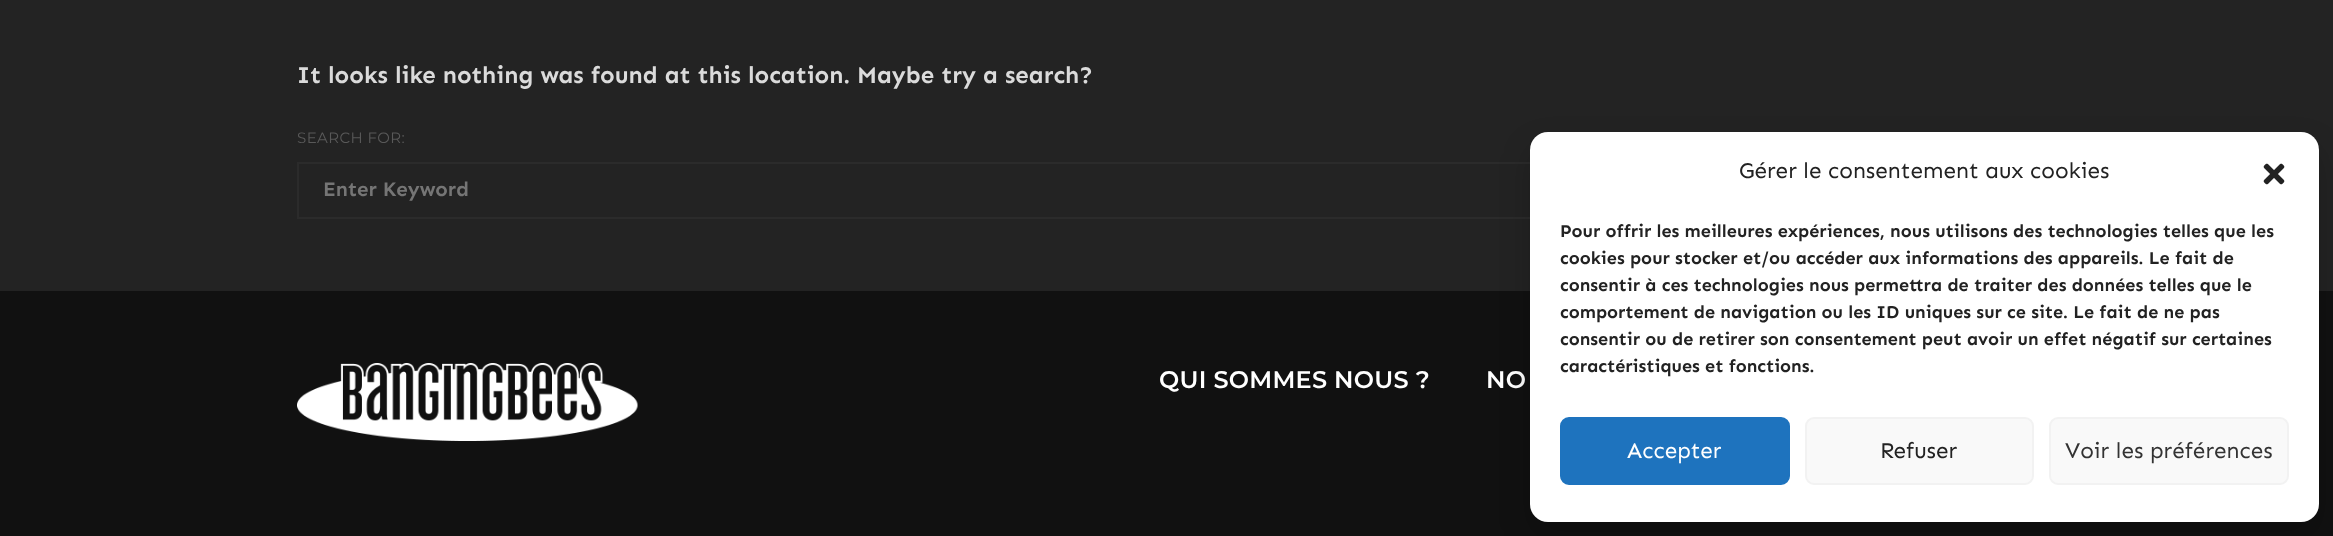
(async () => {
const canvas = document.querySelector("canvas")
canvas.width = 2333
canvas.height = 536
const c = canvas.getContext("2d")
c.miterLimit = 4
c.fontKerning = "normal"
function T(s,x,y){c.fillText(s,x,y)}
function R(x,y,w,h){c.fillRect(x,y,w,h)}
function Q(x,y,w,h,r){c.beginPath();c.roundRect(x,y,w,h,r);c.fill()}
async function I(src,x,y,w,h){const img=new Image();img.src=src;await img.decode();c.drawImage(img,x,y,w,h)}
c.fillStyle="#232323"
R(0,0,2333,536)
c.font="bold 24px Sen"
c.fillStyle="#dbdbdb"
T("It looks like nothing was found at this location. Maybe try a search?",297,83)
c.letterSpacing="0.4px"
c.font="15px Montserrat"
c.fillStyle="#595959"
T("SEARCH FOR:",297,143)
c.strokeStyle="#2b2b2b"
c.lineWidth=2
c.strokeRect(298,163,1614,55)
c.letterSpacing="0px"
c.font="bold 20.5px Sen"
c.fillStyle="#757575"
T("Enter Keyword",323,196)
c.fillStyle="#111"
R(0,291,2333,245)
await I("1.png",297,363,341,78)
c.letterSpacing="0.25px"
c.font="600 24px Montserrat"
c.fillStyle="#fff"
T("QUI SOMMES NOUS ?",1159,388)
T("NO",1486,388)
c.fillStyle="#00000030"
c.filter="blur(15px)"
c.beginPath()
c.roundRect(1530,147,789,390,18)
c.fill()
c.filter="none"
c.fillStyle="#fff"
Q(1530,132,789,390,18)
c.letterSpacing="0px"
c.font="22.5px Sen"
c.fillStyle="#222"
T("Gérer le consentement aux cookies",1739,178)
await I("2.png",2263,163,22,22)
c.font="bold 18px Sen"
T("Pour offrir les meilleures expériences, nous utilisons des technologies telles que les",1560,237)
T("cookies pour stocker et/ou accéder aux informations des appareils. Le fait de",1560,264)
T("consentir à ces technologies nous permettra de traiter des données telles que le",1560,291)
T("comportement de navigation ou les ID uniques sur ce site. Le fait de ne pas",1560,318)
T("consentir ou de retirer son consentement peut avoir un effet négatif sur certaines",1560,345)
T("caractéristiques et fonctions.",1560,372)
c.fillStyle="#1e73be"
c.beginPath()
c.roundRect(1561,418,228,66,8)
c.fill()
c.strokeStyle="#1e73be"
c.stroke()
c.font="22.5px Sen"
c.fillStyle="#fff"
T("Accepter",1627,458)
c.fillStyle="#f9f9f9"
c.beginPath()
c.roundRect(1806,418,227,66,8)
c.fill()
c.strokeStyle="#f2f2f2"
c.stroke()
c.fillStyle="#222"
T("Refuser",1880,458)
c.fillStyle="#f9f9f9"
c.beginPath()
c.roundRect(2050,418,238,66,8)
c.fill()
c.stroke()
c.fillStyle="#333"
T("Voir les préférences",2065,458)
})()
